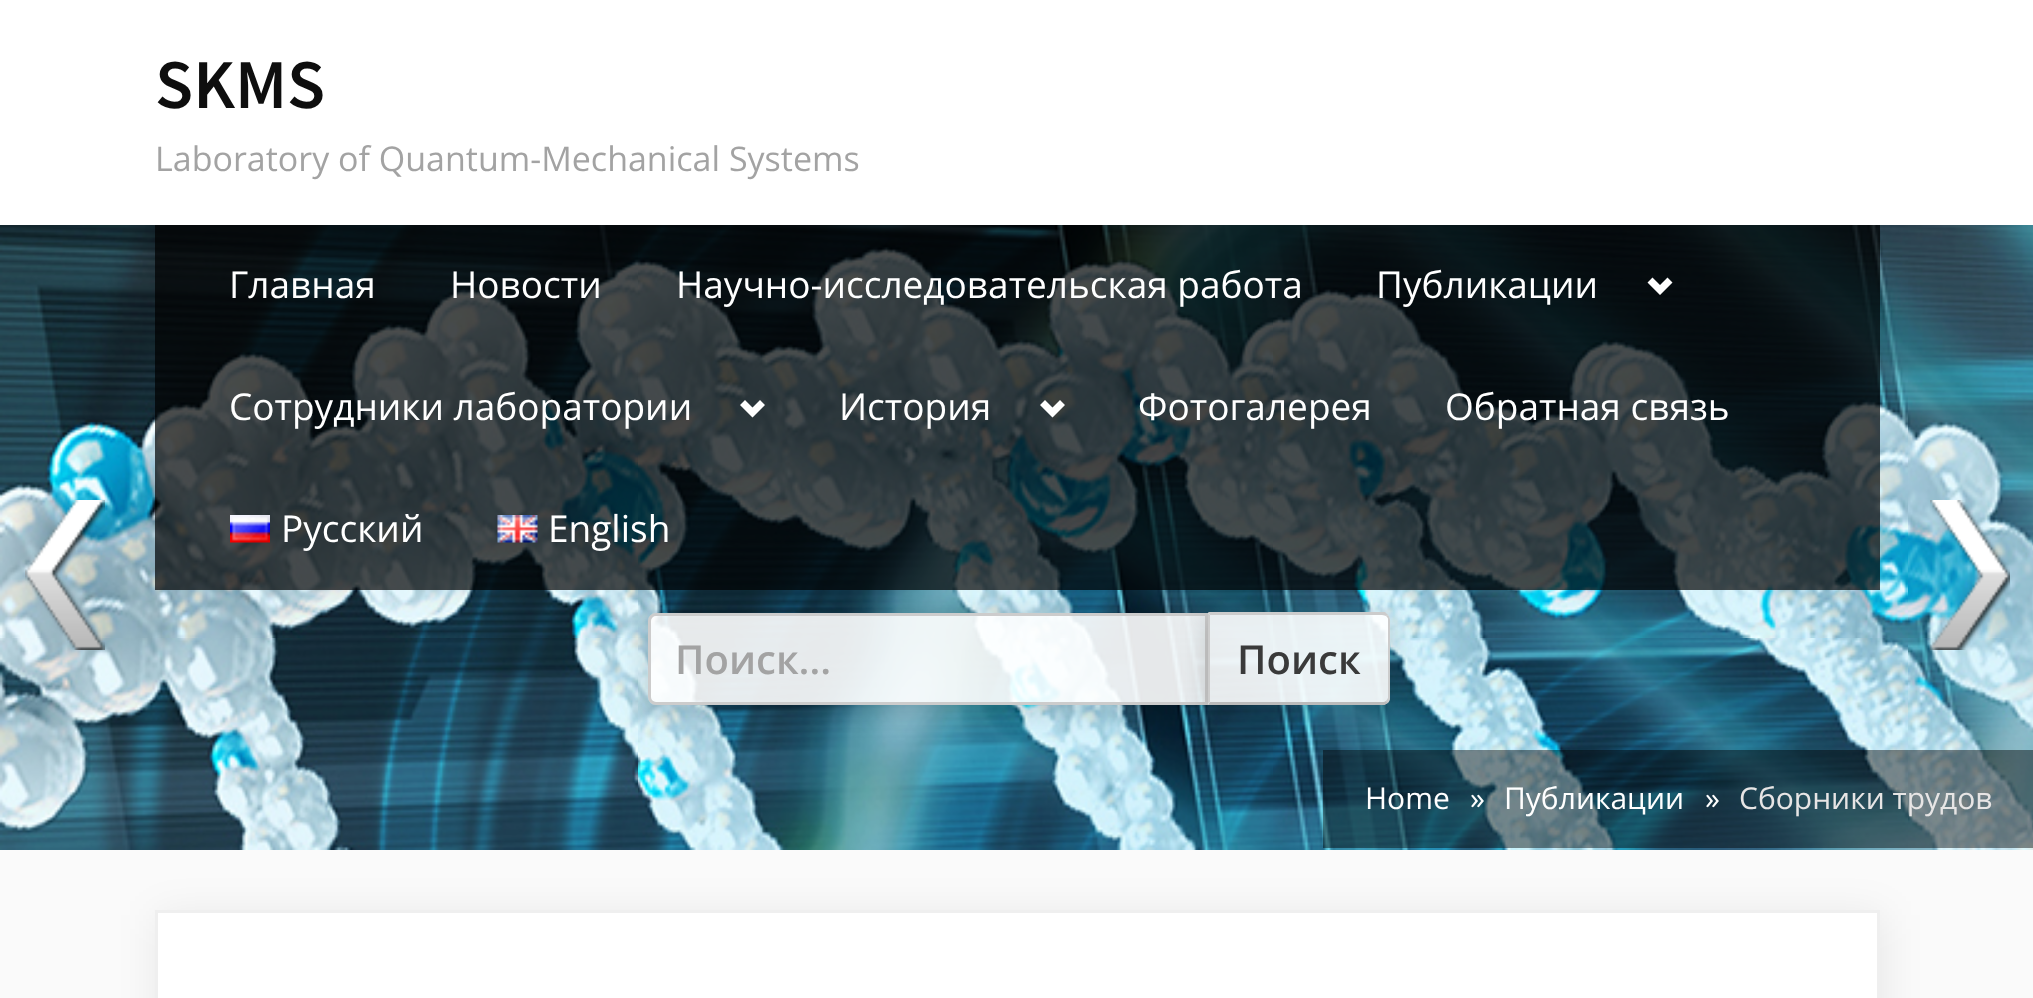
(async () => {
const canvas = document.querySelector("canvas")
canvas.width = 2033
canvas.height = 998
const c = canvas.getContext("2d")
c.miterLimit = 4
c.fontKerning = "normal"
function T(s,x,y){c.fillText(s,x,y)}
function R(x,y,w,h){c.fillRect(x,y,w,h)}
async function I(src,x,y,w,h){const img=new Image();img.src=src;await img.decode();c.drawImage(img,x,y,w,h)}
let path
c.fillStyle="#fafafa"
R(0,0,2033,998)
await I("2.png",0,225,2033,625)
await I("1.png",25,500,80,150)
c.fillStyle="#fff"
R(0,0,2033,225)
c.font="600 70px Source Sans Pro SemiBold"
c.fillStyle="#0e0e0e"
T("SKMS",155,108)
c.font="34px Open Sans"
c.fillStyle="#a3a3a3"
T("Laboratory of Quantum-Mechanical Systems",155,171)
c.save()
path = new Path2D("M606 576h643v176h-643zm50 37h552v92h-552c-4.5 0-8-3.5-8-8v-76c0-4.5 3.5-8 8-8z")
c.clip(path,"evenodd")
c.fillStyle="#00000026"
c.filter="blur(12.5px)"
c.beginPath()
c.roundRect(645,615,565,98,10)
c.fill()
c.filter="none"
c.restore()
c.fillStyle="#ffffffe6"
c.beginPath()
c.roundRect(649.5,614.5,557,89,[6.5,0,0,6.5])
c.fill()
c.strokeStyle="#ccc"
c.lineWidth=3
c.stroke()
c.fillStyle="#00000073"
R(1323,750,710,98)
c.save()
path = new Path2D("M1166 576h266v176h-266zm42 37h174c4.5 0 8 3.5 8 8v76c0 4.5-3.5 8-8 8h-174z")
c.clip(path,"evenodd")
c.fillStyle="#00000026"
c.filter="blur(12.5px)"
c.beginPath()
c.roundRect(1205,615,188,98,10)
c.fill()
c.filter="none"
c.restore()
c.fillStyle="#000000b3"
R(155,225,1725,365)
c.font="37px Open Sans"
c.fillStyle="#fff"
T("Главная",229,298)
T("Новости",450,298)
T("Научно-исследовательская работа",676,298)
T("Публикации",1376,298)
path = new Path2D("M1667.5 277.5l-7.5 7.5l-7.5-7.5l-5 5l12.5 12.5l12.5-12.5z")
c.fill(path)
T("Сотрудники лаборатории",229,420)
path = new Path2D("M760 400l-7.5 7.5l-7.5-7.5l-5 5l12.5 12.5l12.5-12.5z")
c.fill(path)
T("История",839,420)
path = new Path2D("M1060 400l-7.5 7.5l-7.5-7.5l-5 5l12.5 12.5l12.5-12.5z")
c.fill(path)
T("Фотогалерея",1138,420)
T("Обратная связь",1445,420)
await I("3.png",230,515,40,28)
T("Русский",281,542)
await I("4.png",497,515,41,28)
T("English",548,542)
c.font="600 40px Open Sans"
c.fillStyle="#a3a3a3"
T("Поиск…",675,674)
c.fillStyle="#ffffffe6"
c.beginPath()
c.roundRect(1208,613,182,92,[0,8,8,0])
c.fill()
c.fillStyle="#ccc"
path = new Path2D("M1210 615l-2-3h177l3 3l-2 1c-1 0-2-1-4-1z")
c.fill(path)
path = new Path2D("M1390 698v-78c0-2-1-4-2-5l-2 1c1 1 2 2 2 3v79l-2 3l2 2c1-1 2-3 2-5z")
c.fill(path)
c.fillStyle="#bbb"
path = new Path2D("M1208 705h176l4-2l-2-2c-1 1-3 1-4 1h-172z")
c.fill(path)
c.fillStyle="#ccc"
path = new Path2D("M1210 615v87l-2 2v-91z")
c.fill(path)
c.fillStyle="#3a3a3a"
T("Поиск",1237,674)
c.font="30px Open Sans"
c.fillStyle="#fff"
T("Home",1365,809)
T("»",1470,809)
T("Публикации",1504,809)
T("»",1705,809)
c.fillStyle="#e7e5e5"
T("Сборники трудов",1739,809)
c.fillStyle="#00000014"
c.filter="blur(20px)"
c.beginPath()
c.rect(158,915,1725,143)
c.fill()
c.filter="none"
c.fillStyle="#fff"
c.beginPath()
c.rect(156.5,911.5,1722,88)
c.fill()
c.strokeStyle="#efefef"
c.stroke()
await I("5.png",1930,500,80,150)
})()
